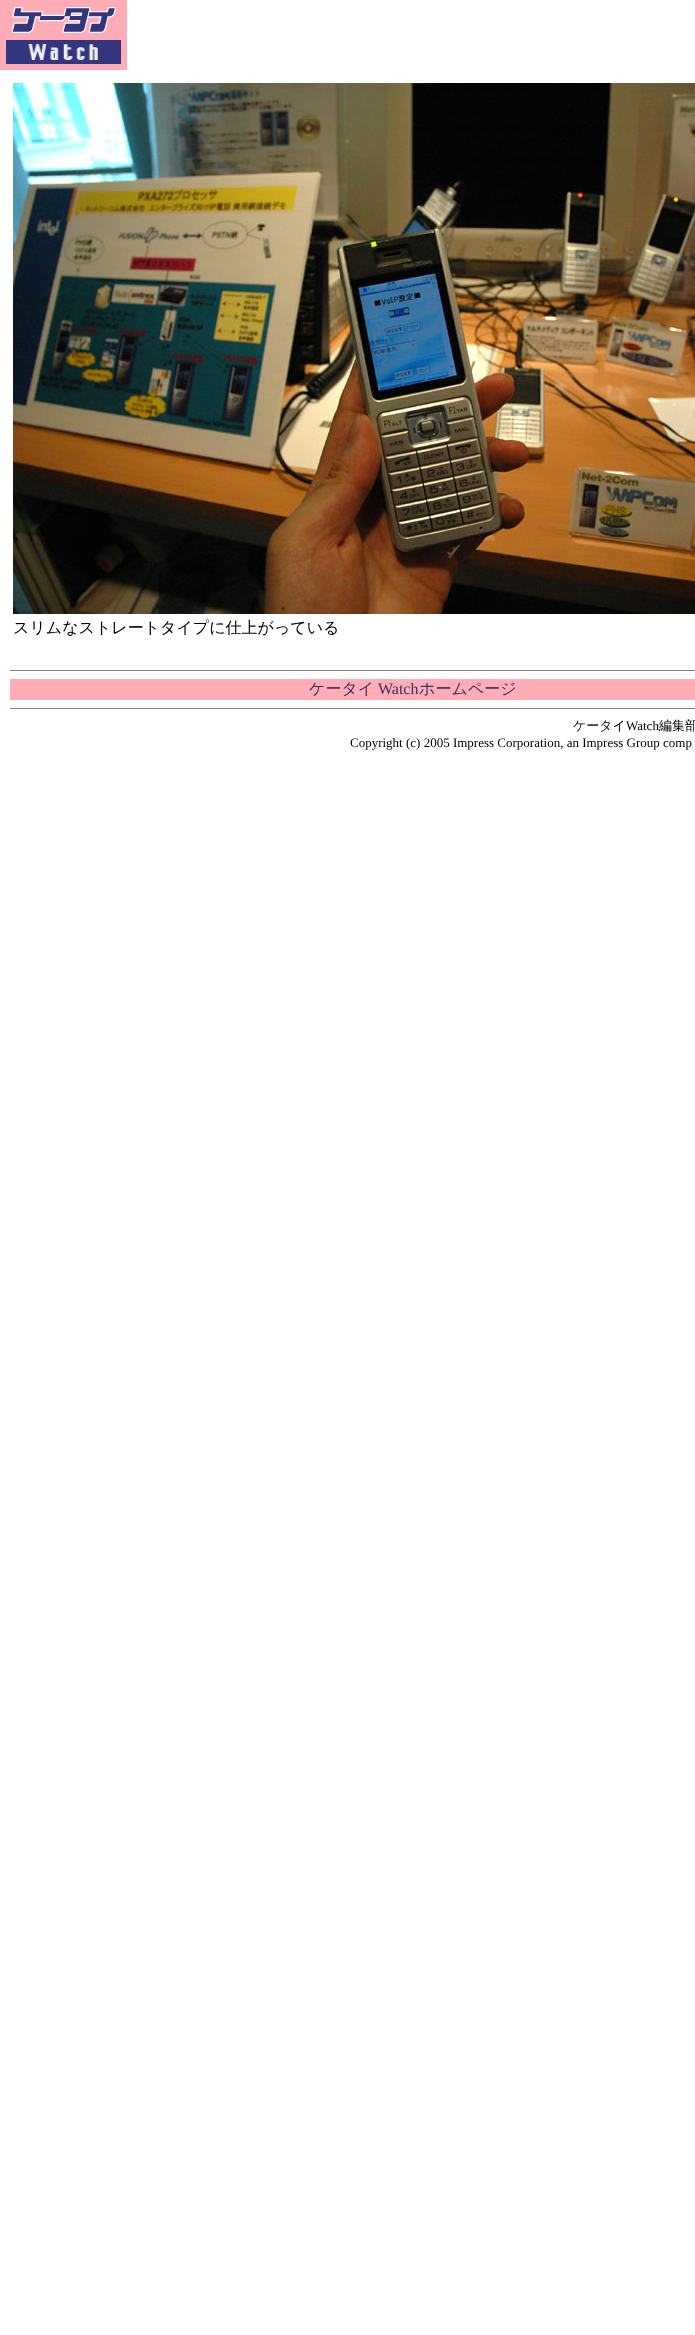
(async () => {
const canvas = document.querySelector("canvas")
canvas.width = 695
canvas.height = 2335
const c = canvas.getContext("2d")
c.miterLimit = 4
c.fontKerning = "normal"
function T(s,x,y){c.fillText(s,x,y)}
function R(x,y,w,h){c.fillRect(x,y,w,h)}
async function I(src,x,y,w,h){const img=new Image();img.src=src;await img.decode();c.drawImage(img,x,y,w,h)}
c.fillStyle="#fff"
R(0,0,695,2335)
c.fillStyle="#ffacb7"
R(0,0,127,70)
await I("1.png",0,5,121,65)
await I("2.png",13,83,682,531)
c.font="500 16px WenQuanYi Zen Hei"
c.fillStyle="#000"
T("スリムなストレートタイプに仕上がっている",13,633)
c.fillStyle="#808080"
R(10,670,685,1)
c.fillStyle="#ffacb7"
R(10,679,685,21)
c.fillStyle="#336"
T("ケータイ",309,694)
c.font="16px Liberation Serif"
T("Watch",378,694)
c.font="500 16px WenQuanYi Zen Hei"
T("ホームページ",419,694)
c.fillStyle="#808080"
R(10,708,685,1)
c.font="500 13px WenQuanYi Zen Hei"
c.fillStyle="#000"
T("ケータイ",573,730)
c.font="13px Liberation Serif"
T("Watch",626,730)
c.font="500 13px WenQuanYi Zen Hei"
T("編集部",659,730)
c.font="13px Liberation Serif"
T("Copyright (c) 2005 Impress Corporation, an Impress Group comp",350,747)
})()
